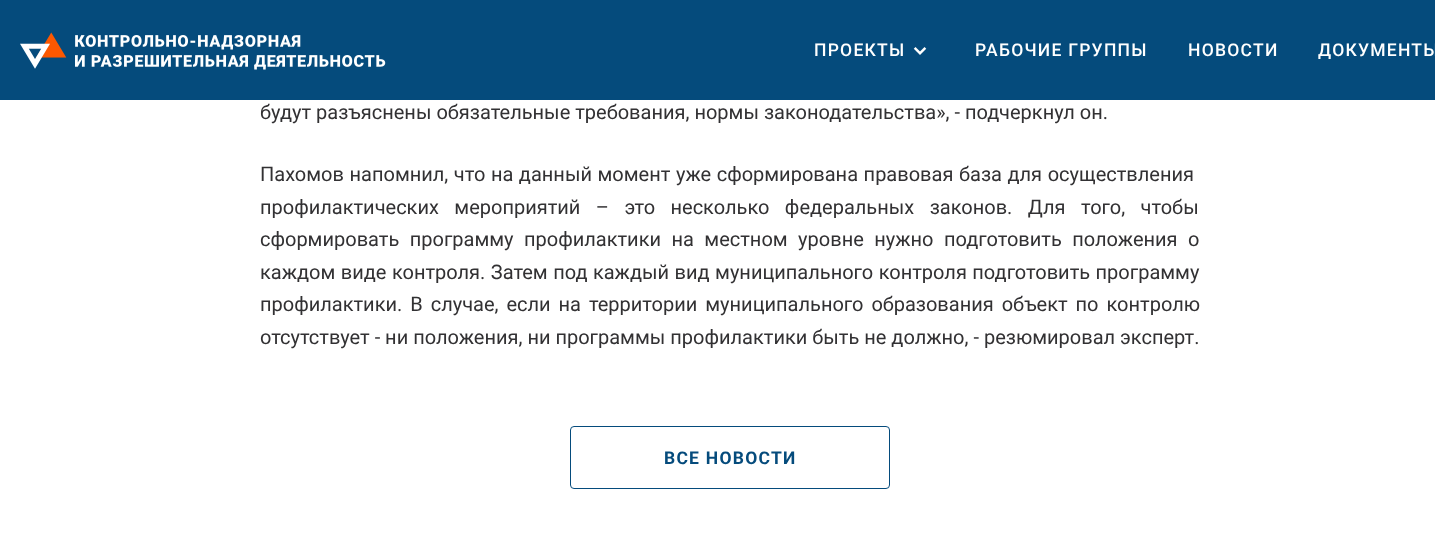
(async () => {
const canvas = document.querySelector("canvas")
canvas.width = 1435
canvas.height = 551
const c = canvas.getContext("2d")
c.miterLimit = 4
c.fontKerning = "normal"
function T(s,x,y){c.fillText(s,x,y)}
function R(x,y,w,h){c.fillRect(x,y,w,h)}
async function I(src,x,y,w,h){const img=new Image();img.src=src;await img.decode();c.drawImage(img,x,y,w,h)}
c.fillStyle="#fff"
R(0,0,1435,551)
c.fillStyle="#054b7c"
R(0,0,1435,100)
await I("1.png",20,32,366,38)
await I("2.png",913,47,14,8)
c.letterSpacing="1.25px"
c.font="500 17.5px Roboto"
c.fillStyle="#fff"
T("ПРОЕКТЫ",814,56)
T("РАБОЧИЕ ГРУППЫ",975,56)
T("НОВОСТИ",1188,56)
T("ДОКУМЕНТЫ",1318,56)
c.letterSpacing="0px"
c.font="20px Roboto"
c.fillStyle="#323133"
T("будут разъяснены обязательные требования, нормы законодательства», - подчеркнул он.",260,119)
c.wordSpacing="0.6px"
T("Пахомов напомнил, что на данный момент уже сформирована правовая база для осуществления",260,181)
c.wordSpacing="10.5px"
T("профилактических мероприятий – это несколько федеральных законов. Для того, чтобы",260,214)
c.wordSpacing="5.5px"
T("сформировать программу профилактики на местном уровне нужно подготовить положения о",260,246)
c.wordSpacing="0.5px"
T("каждом виде контроля. Затем под каждый вид муниципального контроля подготовить программу",260,279)
c.wordSpacing="3px"
T("профилактики. В случае, если на территории муниципального образования объект по контролю",260,311)
c.wordSpacing="0px"
T("отсутствует - ни положения, ни программы профилактики быть не должно, - резюмировал эксперт.",260,344)
c.beginPath()
c.roundRect(570.5,426.5,319,62,3.5)
c.strokeStyle="#054b7c"
c.stroke()
c.letterSpacing="1.25px"
c.font="bold 17.5px Roboto"
c.fillStyle="#054b7c"
T("ВСЕ НОВОСТИ",664,464)
})()
